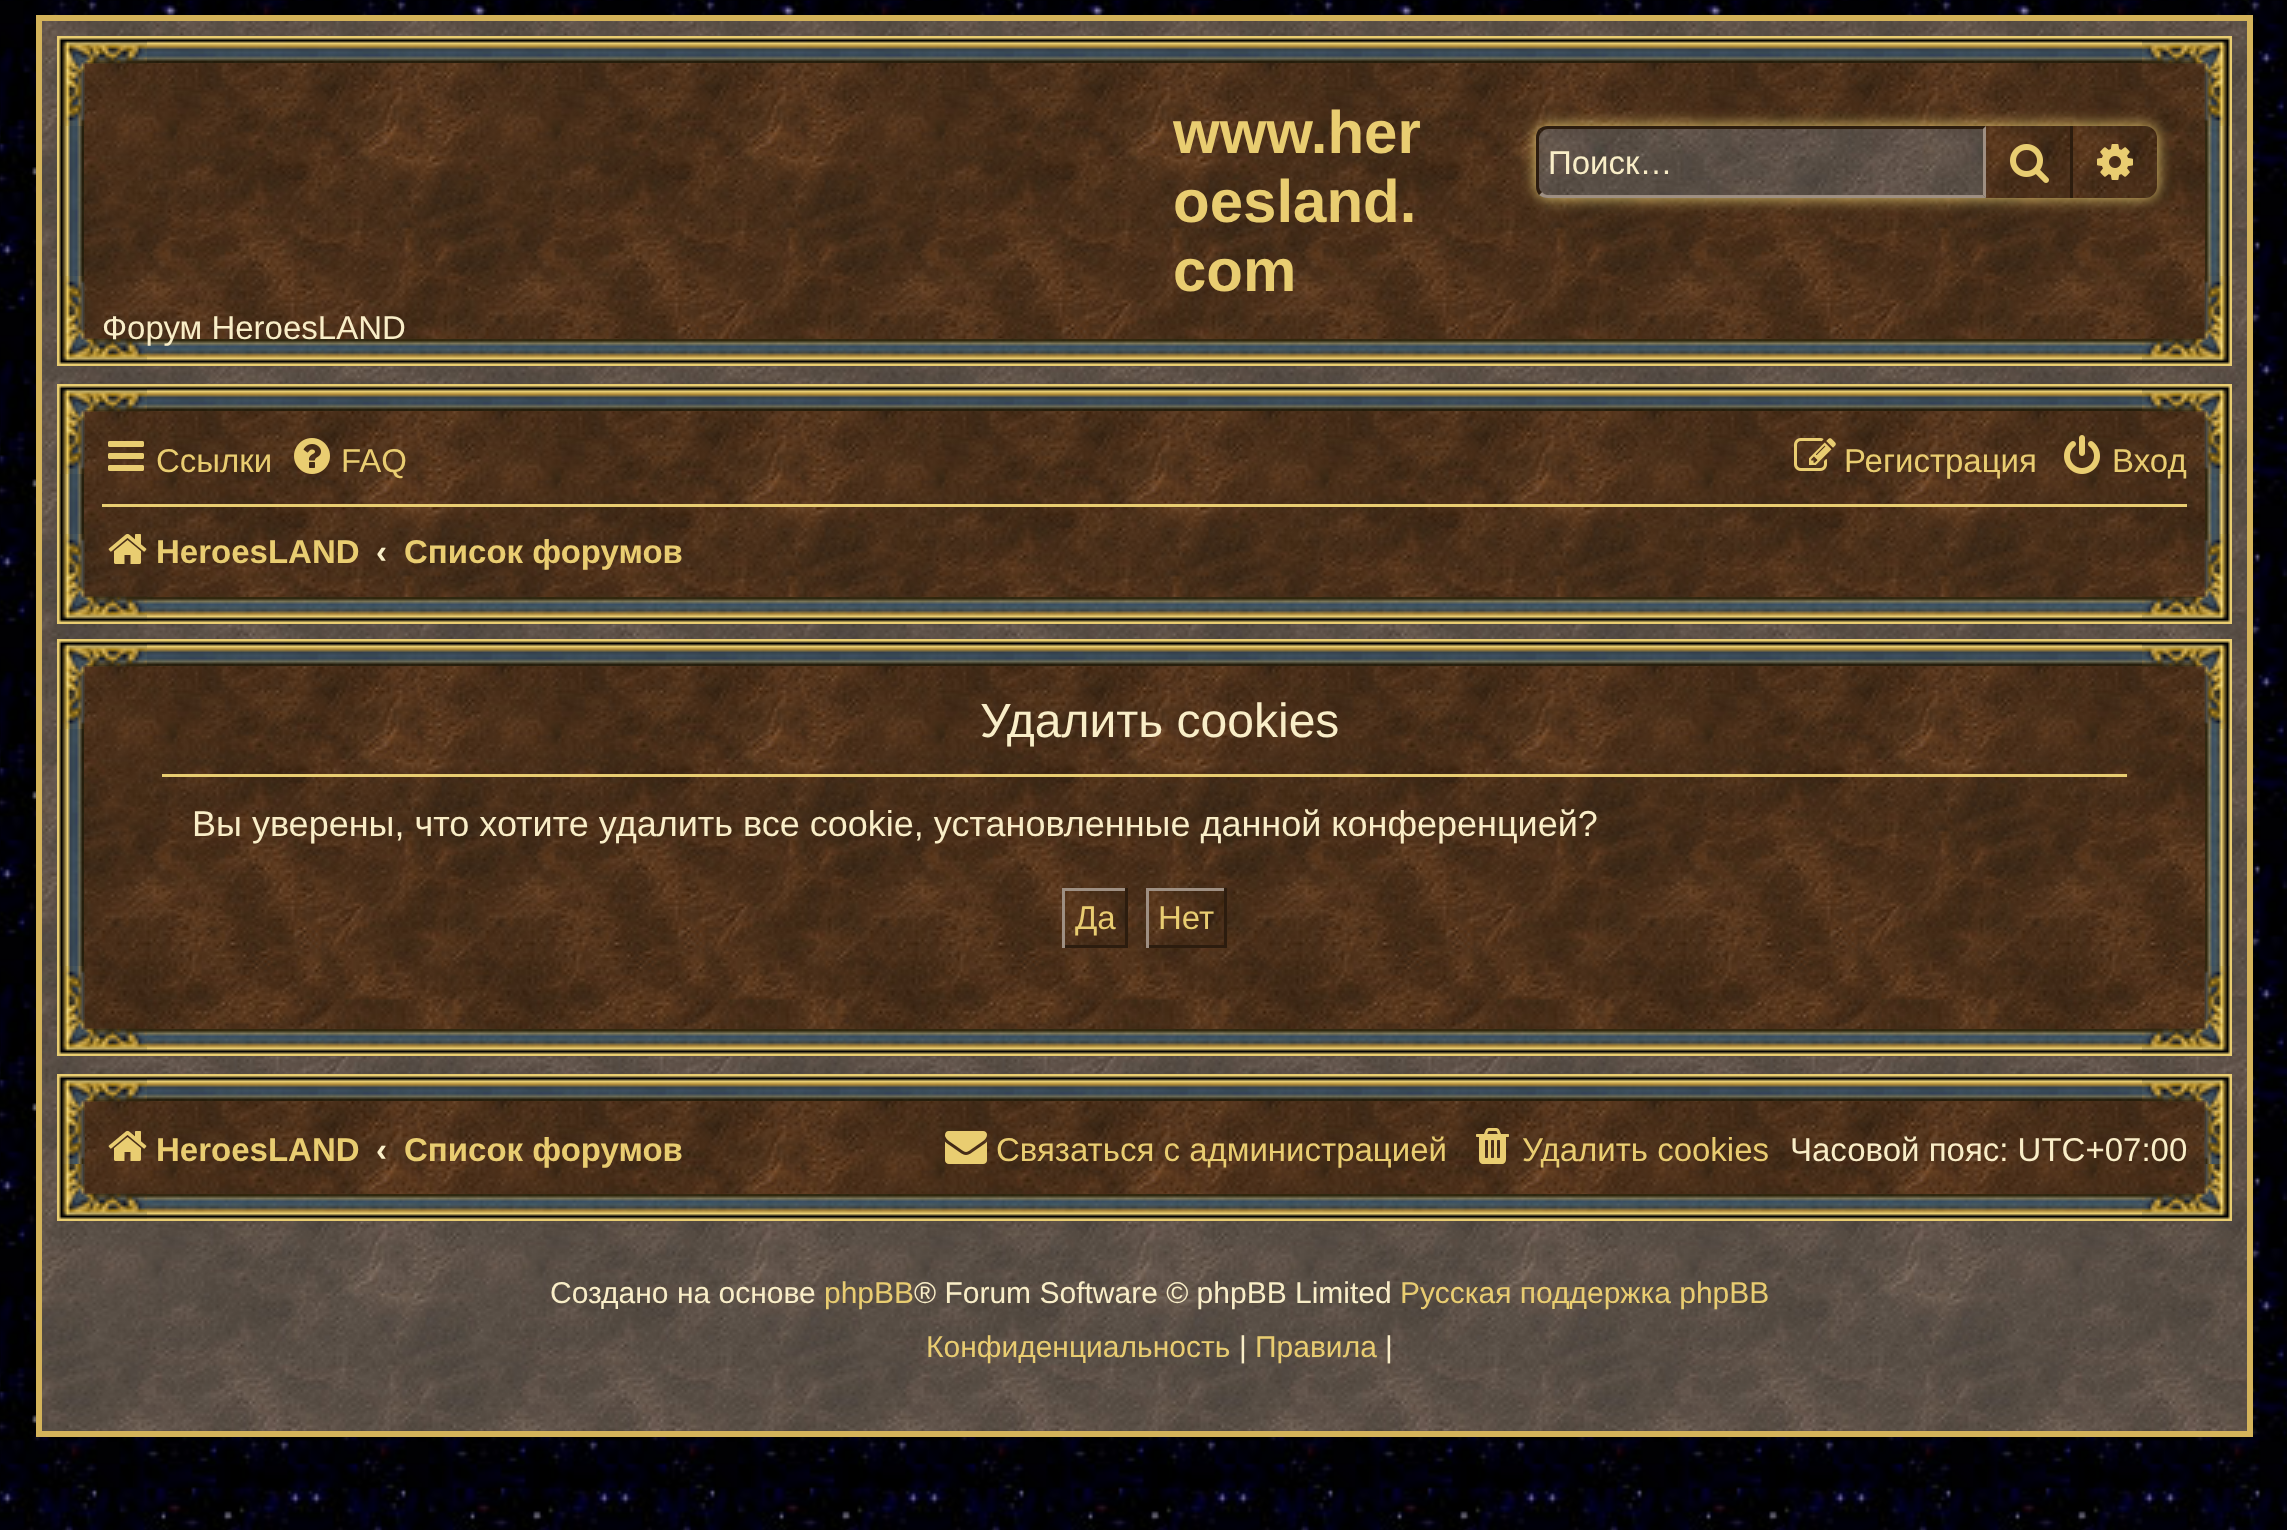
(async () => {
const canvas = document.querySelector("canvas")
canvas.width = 2287
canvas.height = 1530
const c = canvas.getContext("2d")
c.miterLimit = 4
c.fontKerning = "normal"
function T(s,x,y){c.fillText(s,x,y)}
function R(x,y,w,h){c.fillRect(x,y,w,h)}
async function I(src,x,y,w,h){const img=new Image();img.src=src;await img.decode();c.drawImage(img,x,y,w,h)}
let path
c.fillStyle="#fff"
R(0,0,2287,1530)
await I("1.png",0,1452,2287,78)
await I("2.png",0,0,2287,1452)
await I("3.png",42,21,2205,1410)
c.strokeStyle="#d4b35a"
c.lineWidth=6
c.strokeRect(39,18,2211,1416)
await I("4.png",57,36,2175,330)
c.font="bold 60px Liberation Sans"
c.fillStyle="#e9cd71"
T("www.her",1173,153)
T("oesland.",1173,222)
T("com",1173,291)
c.font="33px Liberation Sans"
c.fillStyle="#f9eec8"
T("Форум HeroesLAND",102,339)
c.fillStyle="#e9cd71"
c.filter="blur(7.5px)"
c.beginPath()
c.roundRect(1536,126,621,72,12)
c.fill()
c.filter="none"
await I("5.png",1536,126,450,72)
c.fillStyle="#2c1c0e"
path = new Path2D("M1548 126c-4 0-6 1-9 3l3 3c1-2 4-3 6-3h435l3-3z")
c.fill(path)
c.fillStyle="#9e8f82"
path = new Path2D("M1986 126l-3 3v66l3 3z")
c.fill(path)
path = new Path2D("M1986 198l-3-3h-435c-2 0-5-1-6-3l-3 3c3 2 5 3 9 3z")
c.fill(path)
c.fillStyle="#2c1c0e"
path = new Path2D("M1536 138v48c0 4 1 6 3 9l3-3c-2-1-3-4-3-6v-48c0-2 1-5 3-6l-3-3c-2 3-3 5-3 9z")
c.fill(path)
c.fillStyle="#f9eec8"
T("Поиск…",1548,174)
await I("6.png",1986,126,84,72)
c.fillStyle="#2c1c0e"
R(2070,126,3,72)
await I("7.png",2010,144,39,39)
await I("8.png",2073,126,84,72)
await I("9.png",2097,144,36,36)
await I("10.png",57,384,2175,240)
await I("11.png",108,441,36,30)
c.fillStyle="#e9cd71"
T("Ссылки",156,472)
await I("12.png",294,438,36,36)
T("FAQ",341,472)
await I("13.png",1794,438,42,33)
T("Регистрация",1844,472)
await I("14.png",2064,435,36,39)
T("Вход",2112,472)
R(102,504,2085,3)
await I("15.png",108,533,39,31)
c.font="bold 33px Liberation Sans"
T("HeroesLAND",156,563)
c.fillStyle="#f9eec8"
T("‹",376,563)
c.fillStyle="#e9cd71"
T("Список форумов",404,563)
await I("16.png",57,639,2175,417)
R(162,774,1965,3)
c.font="48px Liberation Sans"
c.fillStyle="#f9eec8"
T("Удалить cookies",980,737)
c.font="36px Liberation Sans"
T("Вы уверены, что хотите удалить все cookie, установленные данной конференцией?",192,836)
await I("17.png",1065,891,60,54)
c.fillStyle="#9e8f82"
R(1062,888,66,3)
c.fillStyle="#2c1c0e"
R(1125,888,3,60)
R(1062,945,66,3)
c.fillStyle="#9e8f82"
R(1062,888,3,60)
c.font="33px Liberation Sans"
c.fillStyle="#e9cd71"
T("Да",1075,929)
await I("18.png",1149,891,75,54)
c.fillStyle="#9e8f82"
R(1146,888,81,3)
c.fillStyle="#2c1c0e"
R(1224,888,3,60)
R(1146,945,81,3)
c.fillStyle="#9e8f82"
R(1146,888,3,60)
c.fillStyle="#e9cd71"
T("Нет",1158,929)
await I("19.png",57,1074,2175,147)
await I("20.png",108,1130,39,31)
c.font="bold 33px Liberation Sans"
T("HeroesLAND",156,1161)
c.fillStyle="#f9eec8"
T("‹",376,1161)
c.fillStyle="#e9cd71"
T("Список форумов",404,1161)
await I("21.png",945,1131,42,33)
c.font="33px Liberation Sans"
T("Связаться с администрацией",996,1161)
await I("22.png",1476,1128,33,36)
T("Удалить cookies",1522,1161)
c.fillStyle="#f9eec8"
T("Часовой пояс: UTC+07:00",1790,1161)
c.font="30px Liberation Sans"
T("Создано на основе",550,1303)
c.fillStyle="#e9cd71"
T("phpBB",824,1303)
c.fillStyle="#f9eec8"
T("® Forum Software © phpBB Limited",914,1303)
c.fillStyle="#e9cd71"
T("Русская поддержка phpBB",1400,1303)
T("Конфиденциальность",926,1357)
c.fillStyle="#f9eec8"
T("|",1239,1357)
c.fillStyle="#e9cd71"
T("Правила",1255,1357)
c.fillStyle="#f9eec8"
T("|",1385,1357)
})()
